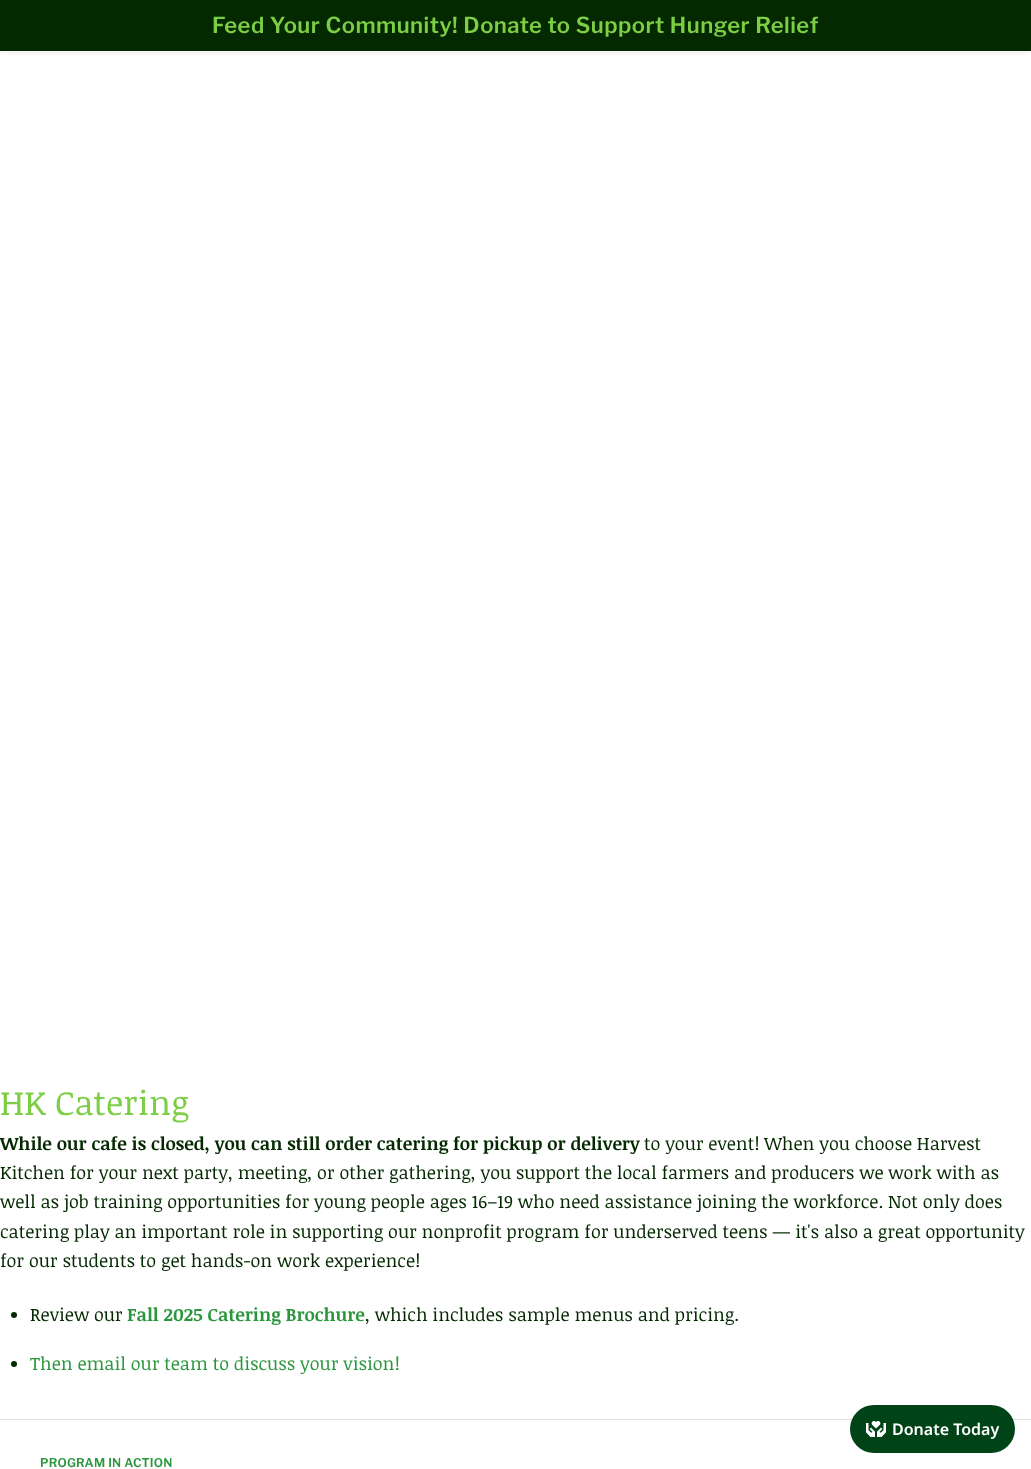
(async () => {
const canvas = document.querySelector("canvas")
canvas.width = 1031
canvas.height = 1469
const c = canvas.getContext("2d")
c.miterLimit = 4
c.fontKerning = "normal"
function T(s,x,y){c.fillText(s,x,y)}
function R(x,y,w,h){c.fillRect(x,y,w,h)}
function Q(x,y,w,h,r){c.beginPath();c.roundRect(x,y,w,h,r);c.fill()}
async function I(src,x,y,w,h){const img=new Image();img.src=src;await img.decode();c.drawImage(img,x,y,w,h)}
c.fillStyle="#fff"
R(0,0,1031,1469)
c.fillStyle="#0000000d"
c.filter="blur(2px)"
c.beginPath()
c.rect(0,3,1031,51)
c.fill()
c.filter="none"
c.fillStyle="#042900"
R(0,0,1031,51)
c.letterSpacing="0.5px"
c.font="600 22px Libre Franklin"
c.fillStyle="#7cce44"
T("Feed Your Community! Donate to Support Hunger Relief",212,33)
c.letterSpacing="0px"
c.font="34px Noticia Text"
T("HK Catering",0,1115)
c.font="bold 18px Noticia Text"
c.fillStyle="#042900"
T("While our cafe is closed, you can still order catering for pickup or delivery",0,1150)
c.font="18px Noticia Text"
T("to your event! When you choose Harvest",644,1150)
T("Kitchen for your next party, meeting, or other gathering, you support the local farmers and producers we work with as",0,1179)
T("well as job training opportunities for young people ages 16–19 who need assistance joining the workforce. Not only does",0,1208)
T("catering play an important role in supporting our nonprofit program for underserved teens — it's also a great opportunity",0,1238)
T("for our students to get hands-on work experience!",0,1267)
c.beginPath()
c.arc(14,1315,3,0,7)
c.fill()
T("Review our",30,1321)
c.font="bold 18px Noticia Text"
c.fillStyle="#2b973d"
T("Fall 2025 Catering Brochure",127,1321)
c.font="18px Noticia Text"
c.fillStyle="#042900"
T(", which includes sample menus and pricing.",365,1321)
c.beginPath()
c.arc(14,1364,3,0,7)
c.fill()
c.fillStyle="#2b973d"
T("Then email our team to discuss your vision!",30,1370)
c.fillStyle="#ddd"
R(0,1419,1031,1)
c.letterSpacing="0.25px"
c.font="600 12px Libre Franklin"
c.fillStyle="#2b973d"
T("PROGRAM IN ACTION",40,1467)
c.fillStyle="#004316"
Q(850,1405,165,48,24)
await I("1.png",866,1421,20,16)
c.letterSpacing="0px"
c.font="600 16px Noto Sans"
c.fillStyle="#fff"
T("Donate Today",892,1435)
})()
